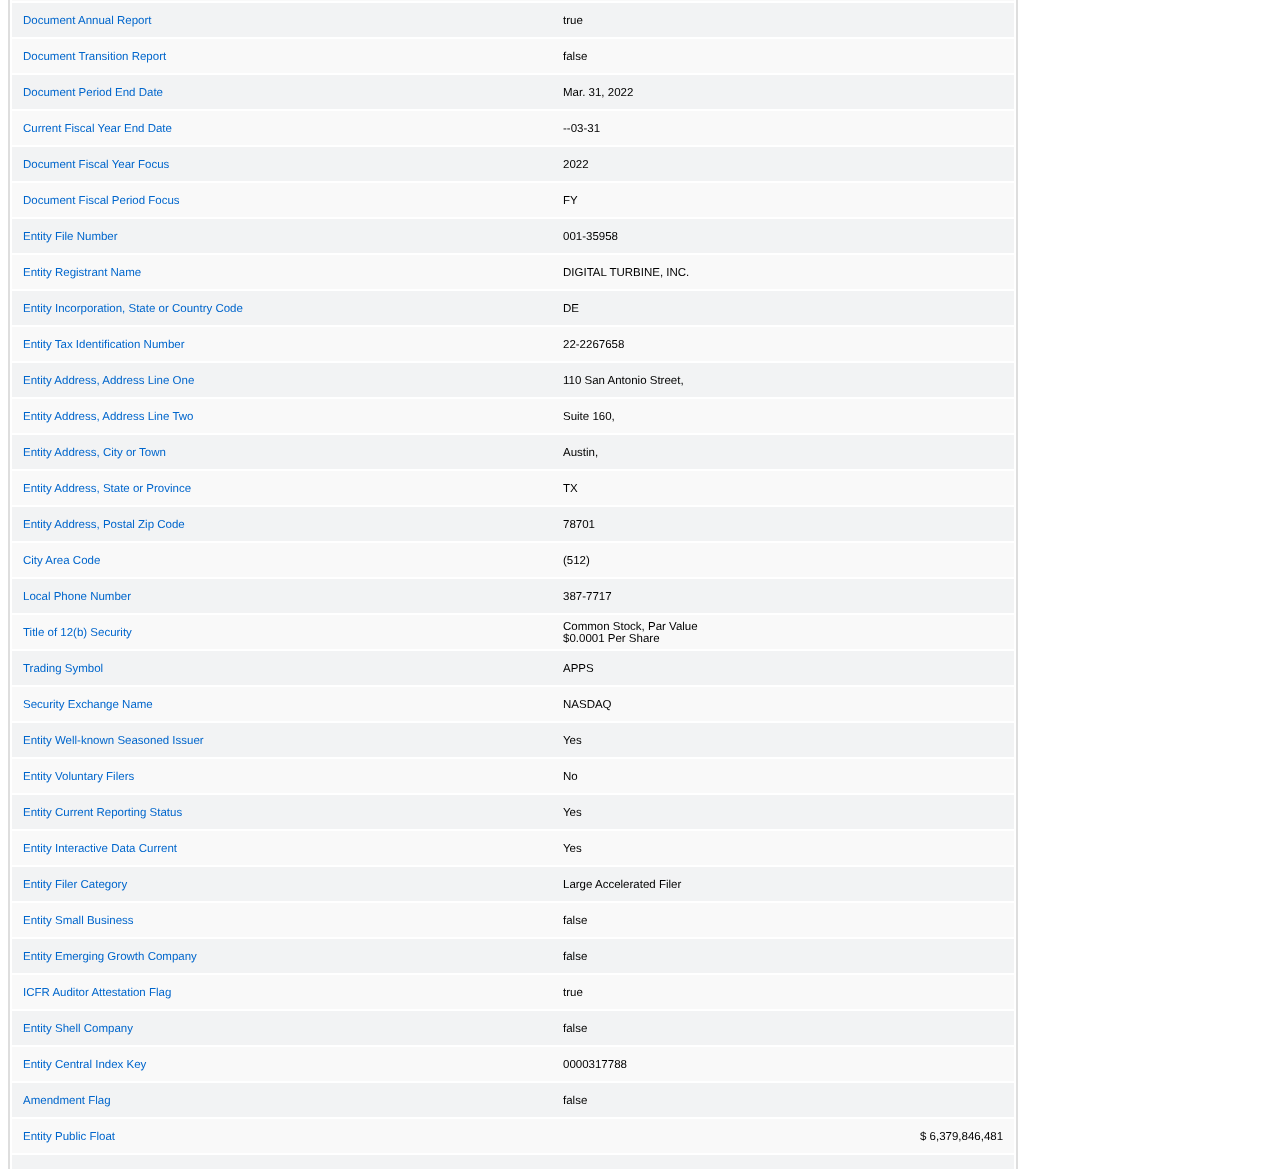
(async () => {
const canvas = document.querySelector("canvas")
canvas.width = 1278
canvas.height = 1169
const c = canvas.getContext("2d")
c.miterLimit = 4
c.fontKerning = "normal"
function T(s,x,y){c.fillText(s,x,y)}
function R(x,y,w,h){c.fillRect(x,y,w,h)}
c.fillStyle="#fff"
R(0,0,1278,1169)
c.strokeStyle="#dedede"
c.lineWidth=2
c.strokeRect(9,-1,1008,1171)
c.fillStyle="#f9f9f9"
R(12,0,1002,1)
c.fillStyle="#f2f3f4"
R(12,3,1002,34)
c.font="11.5px Liberation Sans"
c.fillStyle="#06c"
T("Document Annual Report",23,24)
c.fillStyle="#000"
T("true",563,24)
c.fillStyle="#f9f9f9"
R(12,39,1002,34)
c.fillStyle="#06c"
T("Document Transition Report",23,60)
c.fillStyle="#000"
T("false",563,60)
c.fillStyle="#f2f3f4"
R(12,75,1002,34)
c.fillStyle="#06c"
T("Document Period End Date",23,96)
c.fillStyle="#000"
T("Mar. 31, 2022",563,96)
c.fillStyle="#f9f9f9"
R(12,111,1002,34)
c.fillStyle="#06c"
T("Current Fiscal Year End Date",23,132)
c.fillStyle="#000"
T("--03-31",563,132)
c.fillStyle="#f2f3f4"
R(12,147,1002,34)
c.fillStyle="#06c"
T("Document Fiscal Year Focus",23,168)
c.fillStyle="#000"
T("2022",563,168)
c.fillStyle="#f9f9f9"
R(12,183,1002,34)
c.fillStyle="#06c"
T("Document Fiscal Period Focus",23,204)
c.fillStyle="#000"
T("FY",563,204)
c.fillStyle="#f2f3f4"
R(12,219,1002,34)
c.fillStyle="#06c"
T("Entity File Number",23,240)
c.fillStyle="#000"
T("001-35958",563,240)
c.fillStyle="#f9f9f9"
R(12,255,1002,34)
c.fillStyle="#06c"
T("Entity Registrant Name",23,276)
c.fillStyle="#000"
T("DIGITAL TURBINE, INC.",563,276)
c.fillStyle="#f2f3f4"
R(12,291,1002,34)
c.fillStyle="#06c"
T("Entity Incorporation, State or Country Code",23,312)
c.fillStyle="#000"
T("DE",563,312)
c.fillStyle="#f9f9f9"
R(12,327,1002,34)
c.fillStyle="#06c"
T("Entity Tax Identification Number",23,348)
c.fillStyle="#000"
T("22-2267658",563,348)
c.fillStyle="#f2f3f4"
R(12,363,1002,34)
c.fillStyle="#06c"
T("Entity Address, Address Line One",23,384)
c.fillStyle="#000"
T("110 San Antonio Street,",563,384)
c.fillStyle="#f9f9f9"
R(12,399,1002,34)
c.fillStyle="#06c"
T("Entity Address, Address Line Two",23,420)
c.fillStyle="#000"
T("Suite 160,",563,420)
c.fillStyle="#f2f3f4"
R(12,435,1002,34)
c.fillStyle="#06c"
T("Entity Address, City or Town",23,456)
c.fillStyle="#000"
T("Austin,",563,456)
c.fillStyle="#f9f9f9"
R(12,471,1002,34)
c.fillStyle="#06c"
T("Entity Address, State or Province",23,492)
c.fillStyle="#000"
T("TX",563,492)
c.fillStyle="#f2f3f4"
R(12,507,1002,34)
c.fillStyle="#06c"
T("Entity Address, Postal Zip Code",23,528)
c.fillStyle="#000"
T("78701",563,528)
c.fillStyle="#f9f9f9"
R(12,543,1002,34)
c.fillStyle="#06c"
T("City Area Code",23,564)
c.fillStyle="#000"
T("(512)",563,564)
c.fillStyle="#f2f3f4"
R(12,579,1002,34)
c.fillStyle="#06c"
T("Local Phone Number",23,600)
c.fillStyle="#000"
T("387-7717",563,600)
c.fillStyle="#f9f9f9"
R(12,615,1002,34)
c.fillStyle="#06c"
T("Title of 12(b) Security",23,636)
c.fillStyle="#000"
T("Common Stock, Par Value",563,630)
T("$0.0001 Per Share",563,642)
c.fillStyle="#f2f3f4"
R(12,651,1002,34)
c.fillStyle="#06c"
T("Trading Symbol",23,672)
c.fillStyle="#000"
T("APPS",563,672)
c.fillStyle="#f9f9f9"
R(12,687,1002,34)
c.fillStyle="#06c"
T("Security Exchange Name",23,708)
c.fillStyle="#000"
T("NASDAQ",563,708)
c.fillStyle="#f2f3f4"
R(12,723,1002,34)
c.fillStyle="#06c"
T("Entity Well-known Seasoned Issuer",23,744)
c.fillStyle="#000"
T("Yes",563,744)
c.fillStyle="#f9f9f9"
R(12,759,1002,34)
c.fillStyle="#06c"
T("Entity Voluntary Filers",23,780)
c.fillStyle="#000"
T("No",563,780)
c.fillStyle="#f2f3f4"
R(12,795,1002,34)
c.fillStyle="#06c"
T("Entity Current Reporting Status",23,816)
c.fillStyle="#000"
T("Yes",563,816)
c.fillStyle="#f9f9f9"
R(12,831,1002,34)
c.fillStyle="#06c"
T("Entity Interactive Data Current",23,852)
c.fillStyle="#000"
T("Yes",563,852)
c.fillStyle="#f2f3f4"
R(12,867,1002,34)
c.fillStyle="#06c"
T("Entity Filer Category",23,888)
c.fillStyle="#000"
T("Large Accelerated Filer",563,888)
c.fillStyle="#f9f9f9"
R(12,903,1002,34)
c.fillStyle="#06c"
T("Entity Small Business",23,924)
c.fillStyle="#000"
T("false",563,924)
c.fillStyle="#f2f3f4"
R(12,939,1002,34)
c.fillStyle="#06c"
T("Entity Emerging Growth Company",23,960)
c.fillStyle="#000"
T("false",563,960)
c.fillStyle="#f9f9f9"
R(12,975,1002,34)
c.fillStyle="#06c"
T("ICFR Auditor Attestation Flag",23,996)
c.fillStyle="#000"
T("true",563,996)
c.fillStyle="#f2f3f4"
R(12,1011,1002,34)
c.fillStyle="#06c"
T("Entity Shell Company",23,1032)
c.fillStyle="#000"
T("false",563,1032)
c.fillStyle="#f9f9f9"
R(12,1047,1002,34)
c.fillStyle="#06c"
T("Entity Central Index Key",23,1068)
c.fillStyle="#000"
T("0000317788",563,1068)
c.fillStyle="#f2f3f4"
R(12,1083,1002,34)
c.fillStyle="#06c"
T("Amendment Flag",23,1104)
c.fillStyle="#000"
T("false",563,1104)
c.fillStyle="#f9f9f9"
R(12,1119,1002,34)
c.fillStyle="#06c"
T("Entity Public Float",23,1140)
c.fillStyle="#000"
T("$ 6,379,846,481",920,1140)
c.fillStyle="#f2f3f4"
R(12,1155,1002,14)
})()
